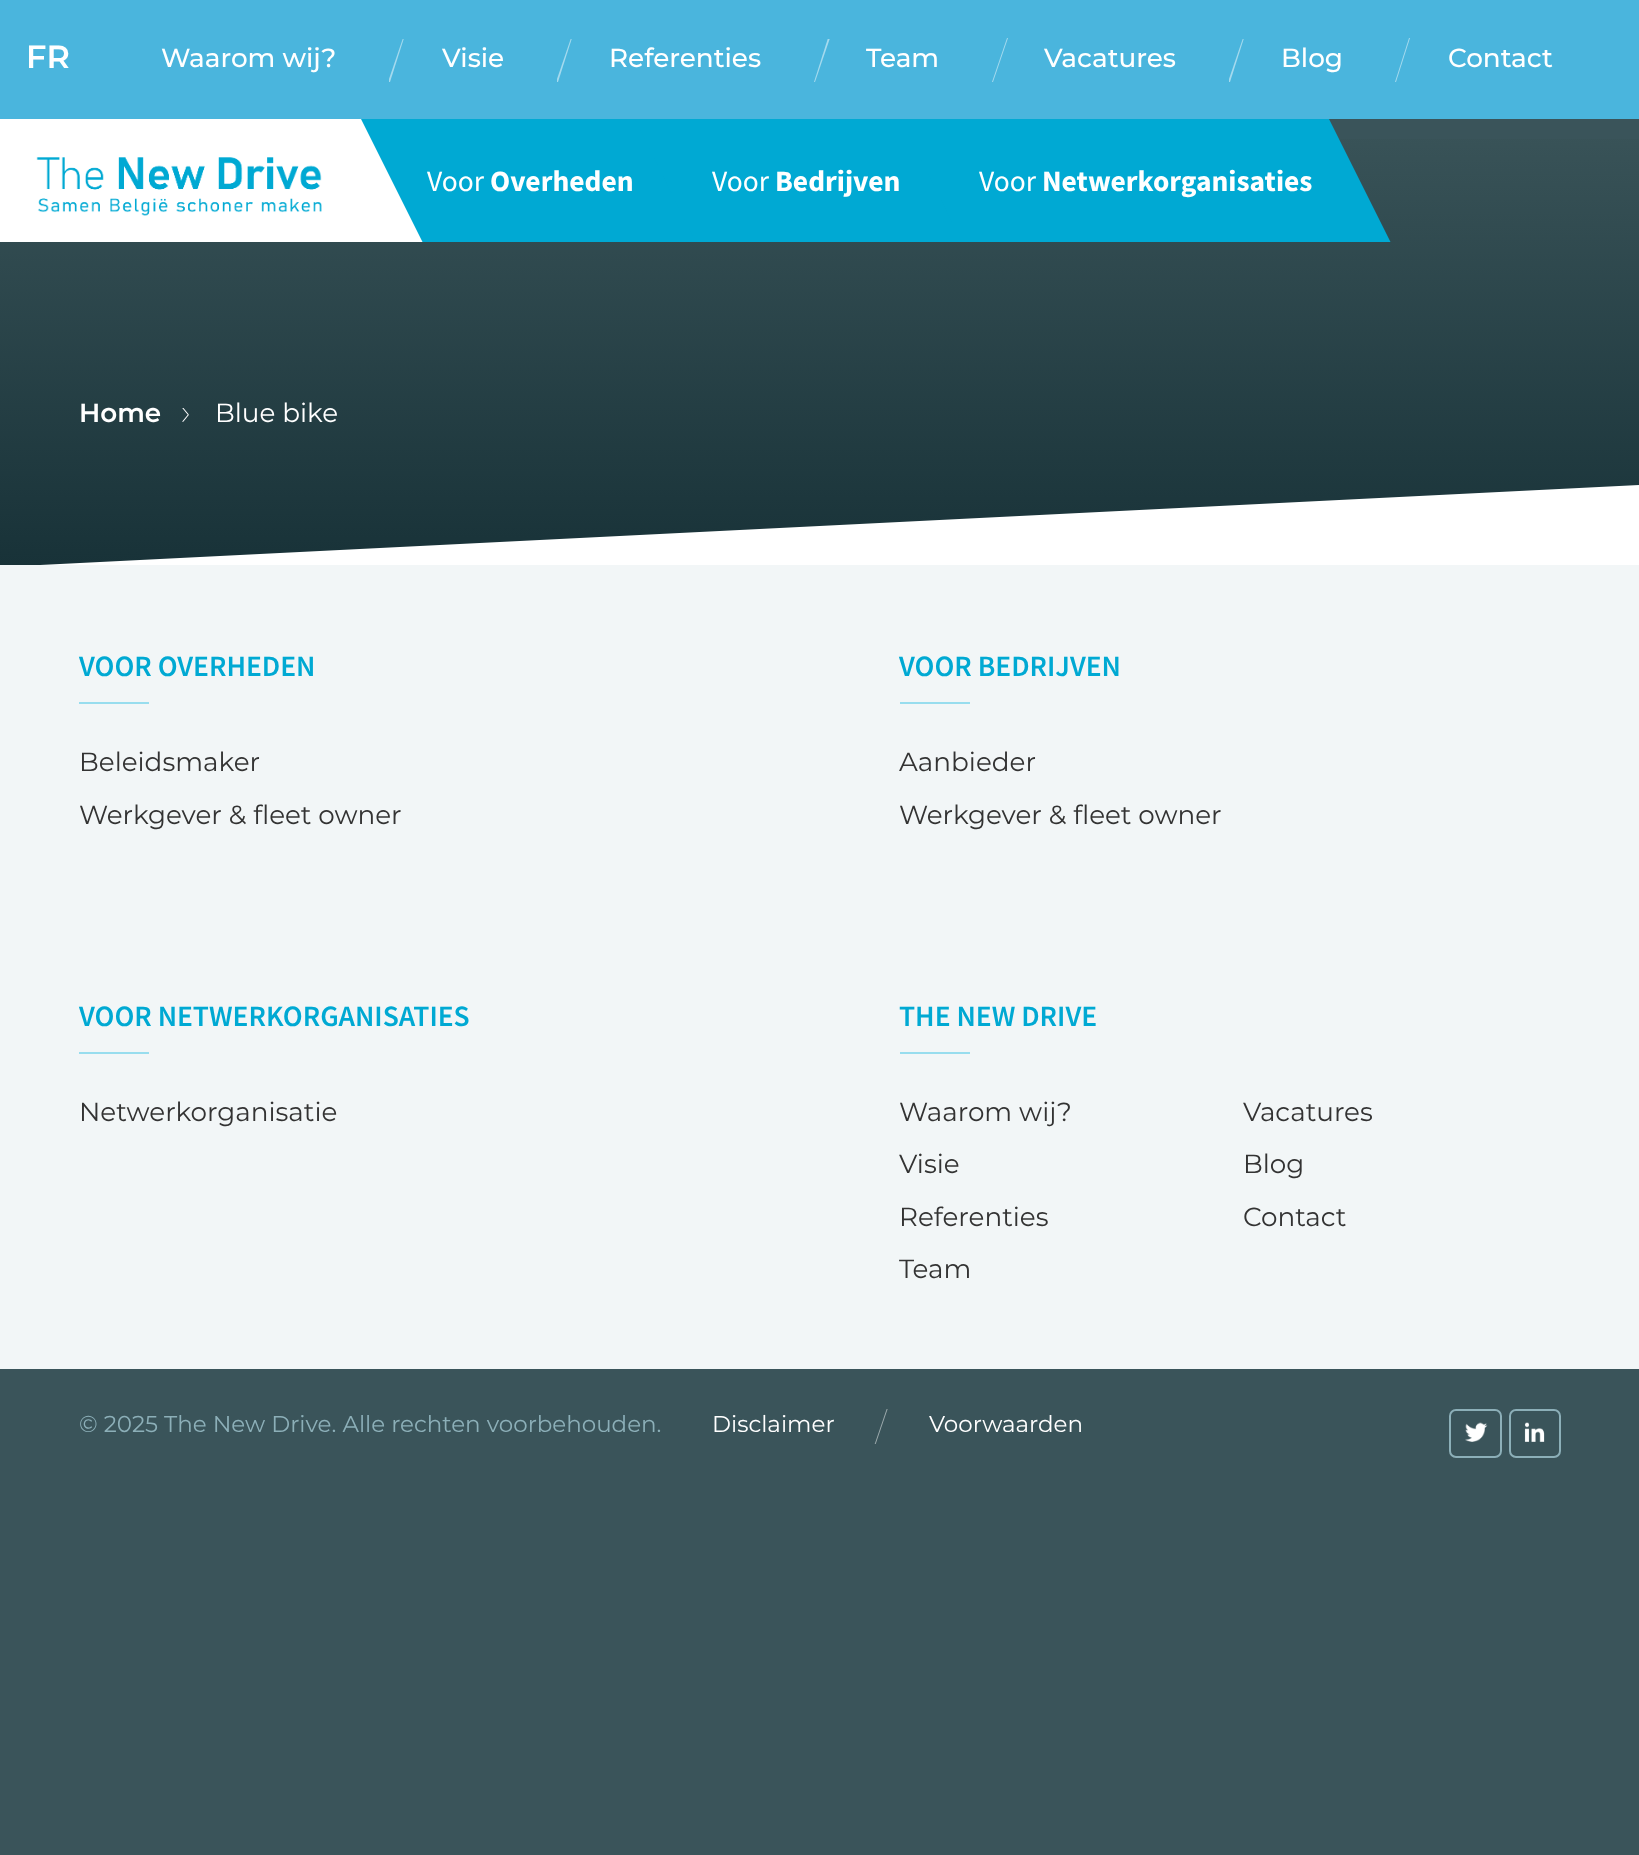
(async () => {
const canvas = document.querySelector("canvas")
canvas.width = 1639
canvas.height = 1855
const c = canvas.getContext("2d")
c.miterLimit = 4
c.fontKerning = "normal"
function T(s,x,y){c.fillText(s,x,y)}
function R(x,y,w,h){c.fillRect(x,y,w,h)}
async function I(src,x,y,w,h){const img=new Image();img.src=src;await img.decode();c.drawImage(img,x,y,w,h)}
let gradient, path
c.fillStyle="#3a545a"
R(0,0,1639,1855)
c.fillStyle="#4ab5dd"
R(0,0,1639,119)
c.font="600 32px Montserrat"
c.fillStyle="#fff"
T("FR",26,68)
c.font="500 26.25px Montserrat"
T("Waarom wij?",161,67)
c.save()
c.beginPath()
c.rect(389,39,15,43)
c.clip()
c.fillStyle="#a5daee"
path = new Path2D("M403 38h1l-14 44h-2z")
c.fill(path)
c.restore()
T("Visie",442,67)
c.save()
c.beginPath()
c.rect(557,39,15,43)
c.clip()
c.fillStyle="#a5daee"
path = new Path2D("M571 38h1l-14 44h-2z")
c.fill(path)
c.restore()
T("Referenties",609,67)
c.save()
c.beginPath()
c.rect(814,39,16,43)
c.clip()
c.fillStyle="#a5daee"
path = new Path2D("M828 38h2l-15 44h-1z")
c.fill(path)
c.restore()
T("Team",866,67)
c.fillStyle="#a5daee"
path = new Path2D("M1007 38h1l-15 44h-1z")
c.fill(path)
c.fillStyle="#fff"
T("Vacatures",1044,67)
c.save()
c.beginPath()
c.rect(1229,39,15,43)
c.clip()
c.fillStyle="#a5daee"
path = new Path2D("M1243 38h1l-14 44h-2z")
c.fill(path)
c.restore()
T("Blog",1281,67)
c.fillStyle="#a5daee"
path = new Path2D("M1409 38h1l-14 44h-1z")
c.fill(path)
c.fillStyle="#fff"
T("Contact",1448,67)
gradient = c.createLinearGradient(820,119,820,565)
gradient.addColorStop(0,"#3a5459")
gradient.addColorStop(1,"#183238")
c.fillStyle = gradient
R(0,139,1639,426)
c.save()
c.beginPath()
c.rect(348,119,377,123)
c.clip()
c.fillStyle="#00a9d3"
path = new Path2D("M348 117h321l75 151h-320z")
c.fill(path)
c.restore()
c.save()
c.beginPath()
c.rect(0,119,439,123)
c.clip()
c.fillStyle="#fff"
path = new Path2D("M0 119h361l88 176h-449z")
c.fill(path)
c.restore()
await I("1.png",36,157,286,59)
c.font="29.5px Source Sans Pro"
c.fillStyle="#fff"
T("Voor",427,191)
c.font="bold 29.5px Source Sans Pro"
T("Overheden",490,191)
c.save()
c.beginPath()
c.rect(634,119,358,123)
c.clip()
c.fillStyle="#00a9d3"
path = new Path2D("M634 117h305l71 144h-305z")
c.fill(path)
c.restore()
c.font="29.5px Source Sans Pro"
T("Voor",712,191)
c.font="bold 29.5px Source Sans Pro"
T("Bedrijven",775,191)
c.save()
c.beginPath()
c.rect(900,119,504,123)
c.clip()
c.fillStyle="#00a9d3"
path = new Path2D("M900 117h428l101 202h-429z")
c.fill(path)
c.restore()
c.font="29.5px Source Sans Pro"
T("Voor",979,191)
c.font="bold 29.5px Source Sans Pro"
T("Netwerkorganisaties",1042,191)
c.font="600 26.25px Montserrat"
T("Home",79,422)
await I("2.png",182,408,7,14)
c.font="26.25px Montserrat"
T("Blue bike",215,422)
path = new Path2D("M0 567l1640-82v82z")
c.fill(path)
c.fillStyle="#f2f6f7"
R(0,565,1639,804)
c.font="600 29.5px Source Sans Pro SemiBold"
c.fillStyle="#00a9d3"
T("VOOR OVERHEDEN",79,676)
c.fillStyle="#98ddee"
R(79,702,70,2)
c.font="26.25px Montserrat"
c.fillStyle="#333"
T("Beleidsmaker",79,771)
T("Werkgever & fleet owner",79,824)
c.font="600 29.5px Source Sans Pro SemiBold"
c.fillStyle="#00a9d3"
T("VOOR BEDRIJVEN",899,676)
c.fillStyle="#98ddee"
R(900,702,70,2)
c.font="26.25px Montserrat"
c.fillStyle="#333"
T("Aanbieder",899,771)
T("Werkgever & fleet owner",899,824)
c.font="600 29.5px Source Sans Pro SemiBold"
c.fillStyle="#00a9d3"
T("VOOR NETWERKORGANISATIES",79,1026)
c.fillStyle="#98ddee"
R(79,1052,70,2)
c.font="26.25px Montserrat"
c.fillStyle="#333"
T("Netwerkorganisatie",79,1121)
c.font="600 29.5px Source Sans Pro SemiBold"
c.fillStyle="#00a9d3"
T("THE NEW DRIVE",899,1026)
c.fillStyle="#98ddee"
R(900,1052,70,2)
c.font="26.25px Montserrat"
c.fillStyle="#333"
T("Waarom wij?",899,1121)
T("Vacatures",1243,1121)
T("Visie",899,1173)
T("Blog",1243,1173)
T("Referenties",899,1226)
T("Contact",1243,1226)
T("Team",899,1278)
c.font="23px Montserrat"
c.fillStyle="#8cafb8"
T("© 2025 The New Drive. Alle rechten voorbehouden.",79,1432)
c.fillStyle="#fff"
T("Disclaimer",712,1432)
c.save()
c.beginPath()
c.rect(873,1409,16,35)
c.clip()
c.fillStyle="#9daaad"
path = new Path2D("M888 1405h1l-15 44h-1z")
c.fill(path)
c.restore()
T("Voorwaarden",929,1432)
c.beginPath()
c.roundRect(1450,1410,51,47,6)
c.strokeStyle="#8cafb8"
c.lineWidth=2
c.stroke()
await I("3.png",1465,1422,23,20)
c.beginPath()
c.roundRect(1510,1410,50,47,6)
c.stroke()
await I("4.png",1524,1422,21,20)
})()
